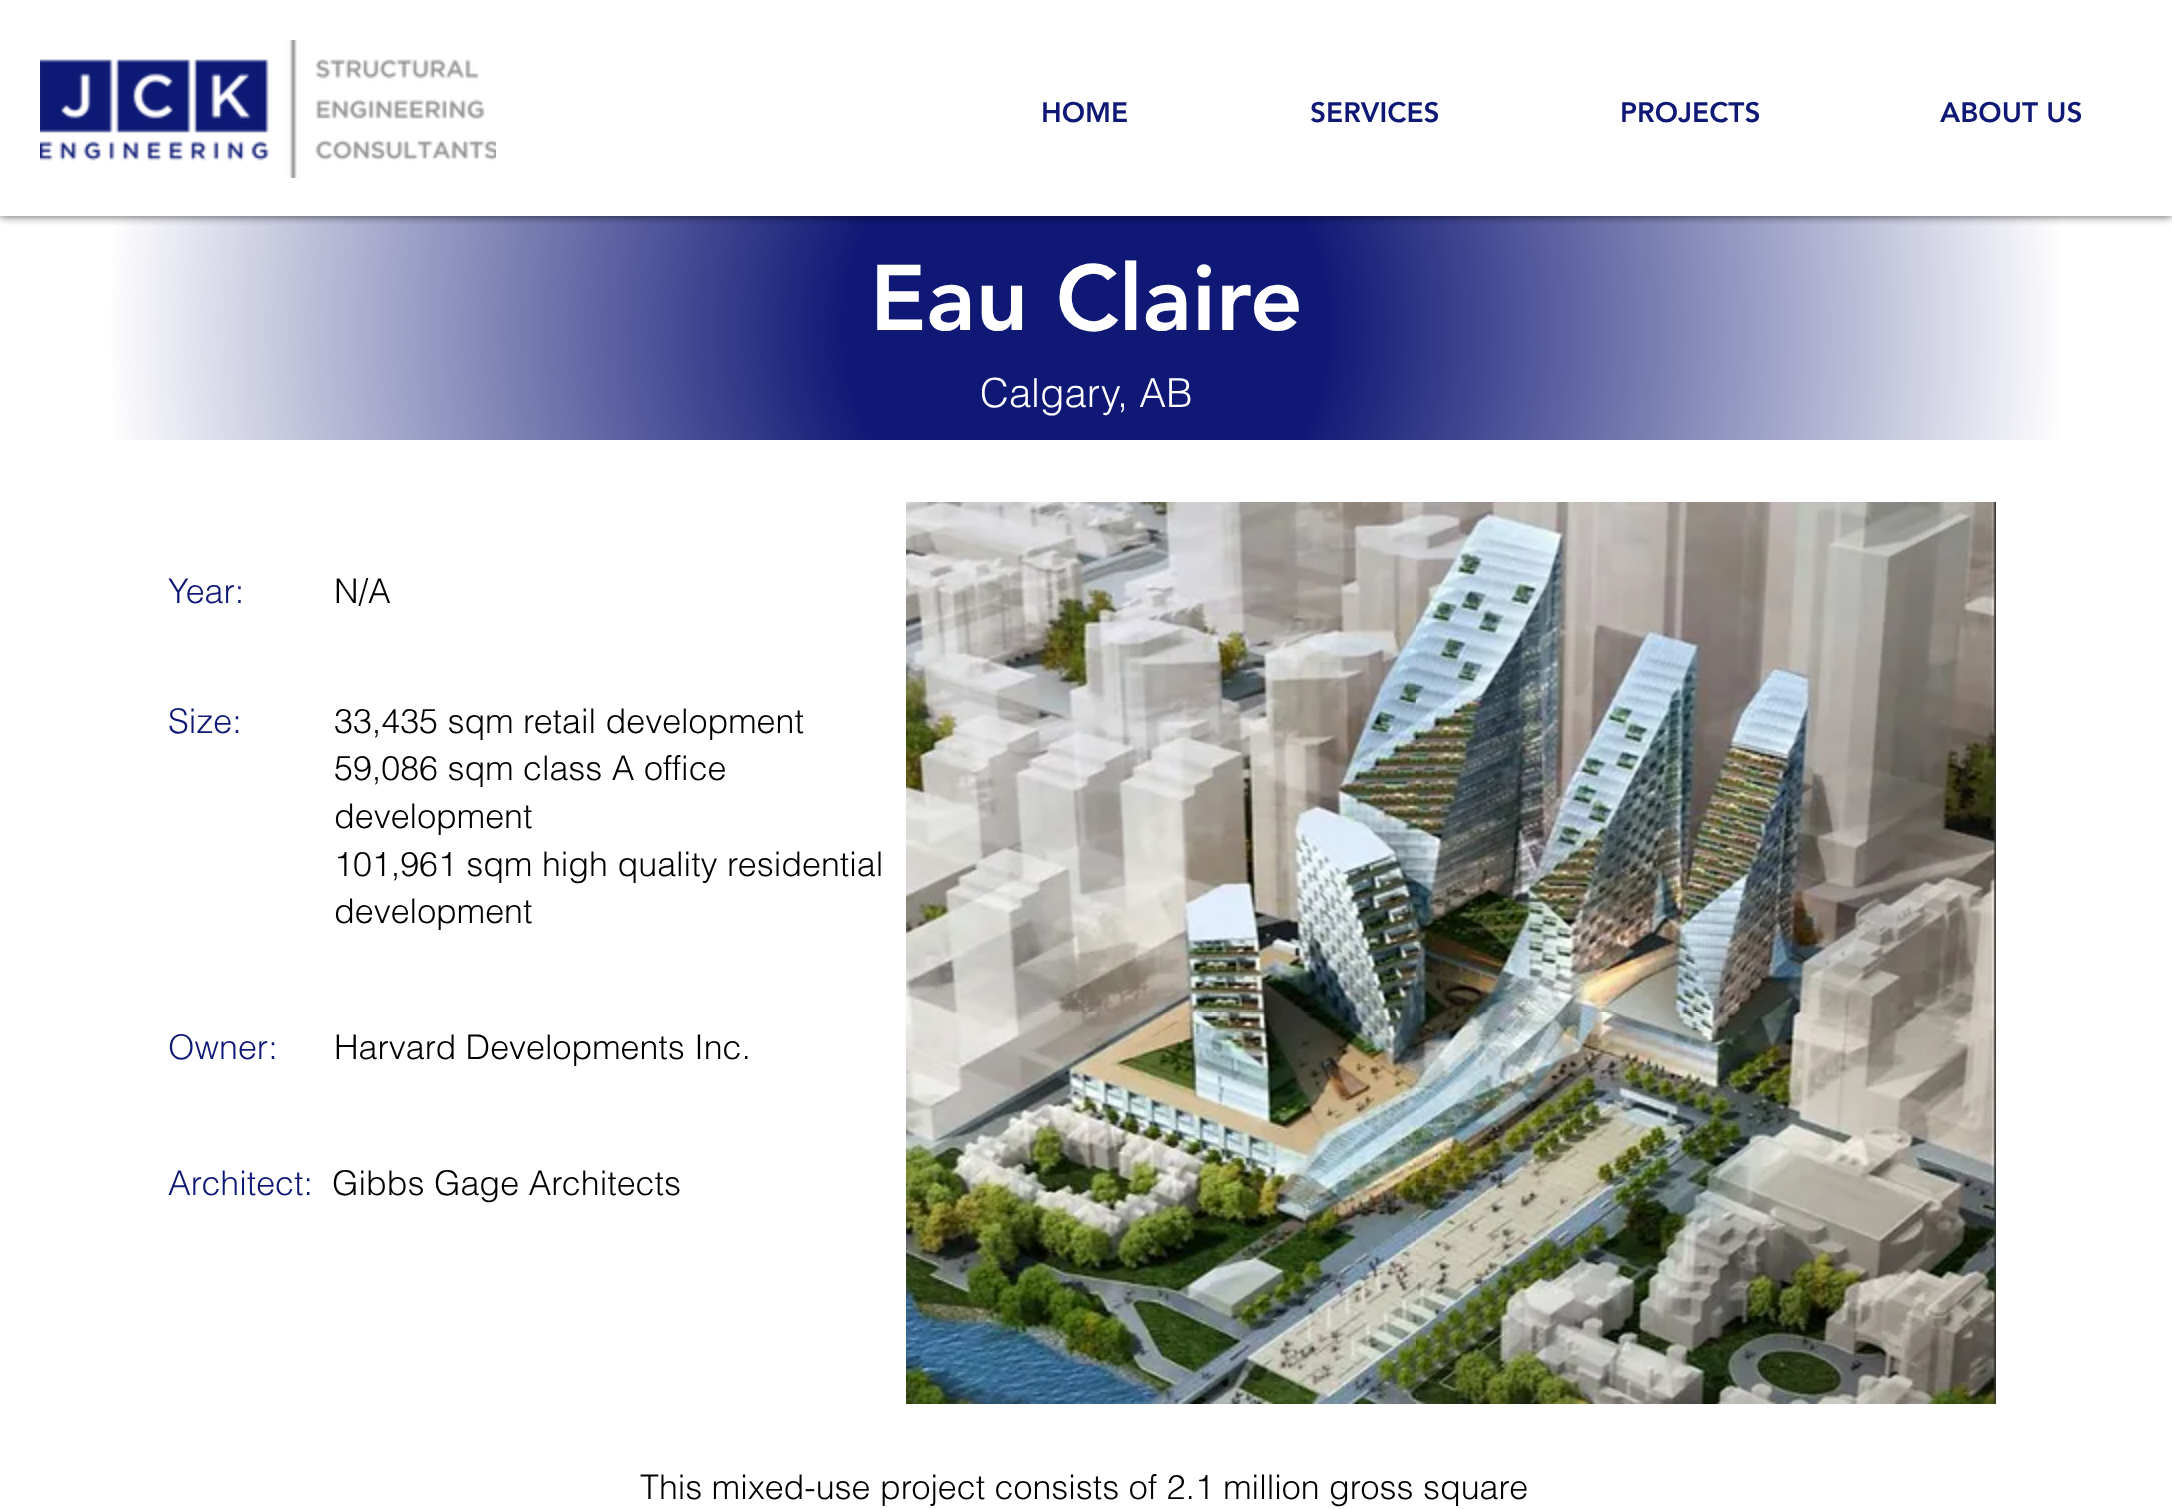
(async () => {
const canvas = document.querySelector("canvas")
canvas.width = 2172
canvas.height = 1509
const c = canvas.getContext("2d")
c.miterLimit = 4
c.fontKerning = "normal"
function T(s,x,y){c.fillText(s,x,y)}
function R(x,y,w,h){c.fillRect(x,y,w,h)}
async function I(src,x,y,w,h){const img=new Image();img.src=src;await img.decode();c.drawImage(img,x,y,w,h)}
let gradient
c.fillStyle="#fff"
R(0,0,2172,1509)
gradient = c.createRadialGradient(1086,328,0,1086,328,1092)
gradient.addColorStop(.22,"#0f1875")
gradient.addColorStop(.9,"#fff")
c.fillStyle = gradient
R(111,216,1950,224)
c.save()
c.beginPath()
c.rect(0,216,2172,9)
c.clip()
c.fillStyle="#000000b3"
c.filter="blur(5px)"
c.beginPath()
c.rect(0,0,2172,216)
c.fill()
c.filter="none"
c.restore()
await I("1.png",40,40,456,138)
c.font="900 28px 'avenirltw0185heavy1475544'"
c.fillStyle="#0f1875"
T("HOME",1041,122)
T("SERVICES",1310,122)
T("PROJECTS",1620,122)
T("ABOUT US",1940,122)
c.font="900 92px 'avenirltw0185heavy1475544'"
c.fillStyle="#fff"
T("Eau Claire",870,330)
c.font="300 40px helvetica"
T("Calgary, AB",980,407)
c.font="300 34px helvetica"
c.fillStyle="#0f1875"
T("Year:",168,603)
c.fillStyle="#000"
T("N/A",334,603)
await I("2.png",906,502,1090,902)
c.fillStyle="#0f1875"
T("Size:",168,733)
c.fillStyle="#000"
T("33,435 sqm retail development",334,733)
T("59,086 sqm class A office",334,780)
T("development",334,828)
T("101,961 sqm high quality residential",334,876)
T("development",334,923)
c.fillStyle="#0f1875"
T("Owner:",168,1059)
c.fillStyle="#000"
T("Harvard Developments Inc.",334,1059)
c.fillStyle="#0f1875"
T("Architect:",168,1195)
c.fillStyle="#000"
T("Gibbs Gage Architects",332,1195)
T("This mixed-use project consists of 2.1 million gross square",640,1499)
})()
